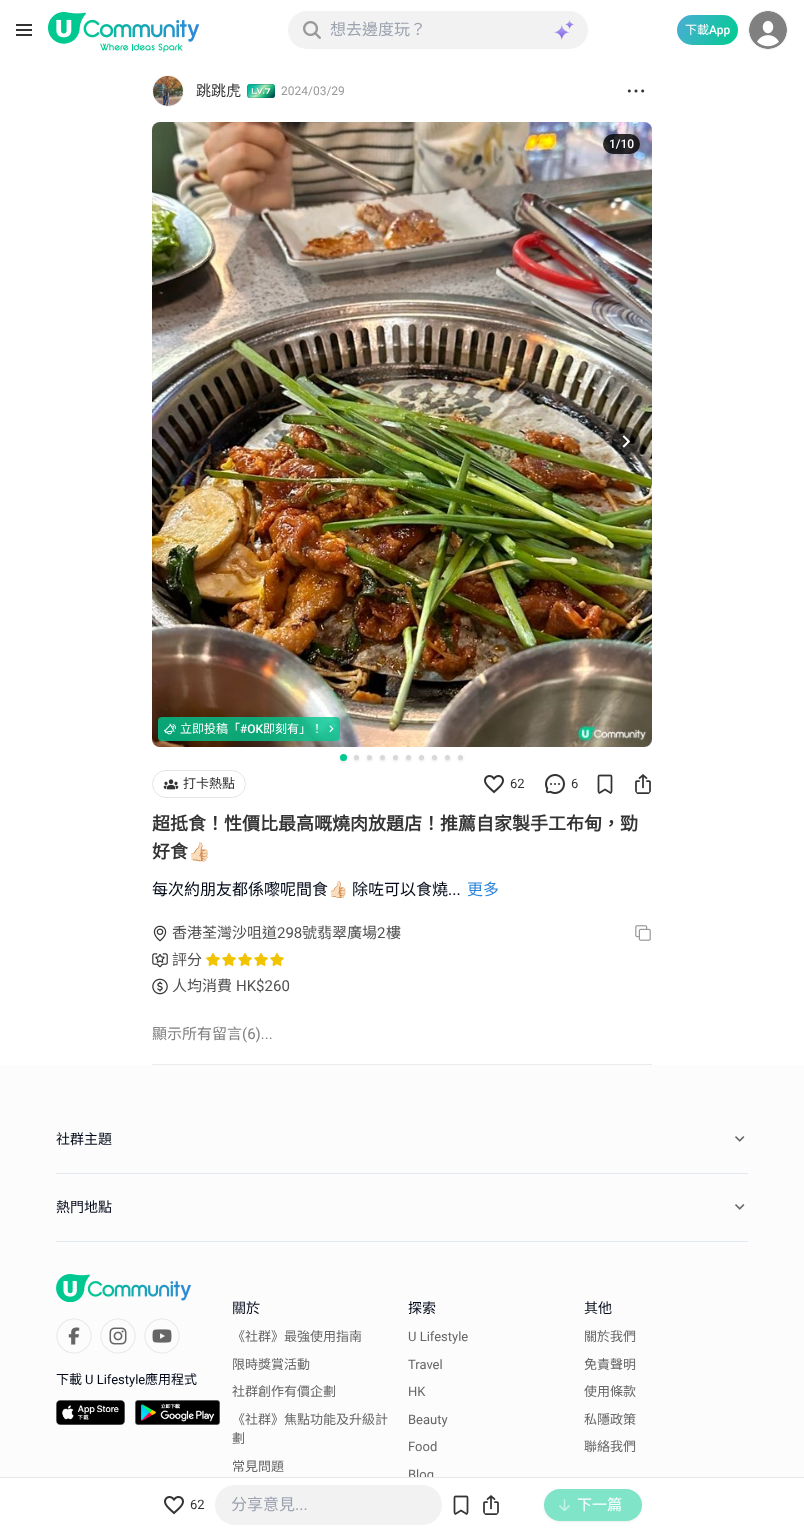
(async () => {
const canvas = document.querySelector("canvas")
canvas.width = 804
canvas.height = 1532
const c = canvas.getContext("2d")
c.miterLimit = 4
c.fontKerning = "normal"
function T(s,x,y){c.fillText(s,x,y)}
function R(x,y,w,h){c.fillRect(x,y,w,h)}
function Q(x,y,w,h,r){c.beginPath();c.roundRect(x,y,w,h,r);c.fill()}
async function I(src,x,y,w,h){const img=new Image();img.src=src;await img.decode();c.drawImage(img,x,y,w,h)}
let gradient
c.fillStyle="#fff"
R(0,0,804,1532)
await I("1.png",16,24,16,12)
await I("2.png",48,12,151,40)
c.fillStyle="#f2f2f2"
Q(288,11,300,38,19)
await I("3.png",303,21,18,18)
c.font="16px Noto Sans CJK HK"
c.fillStyle="#9ca3af"
T("想去邊度玩？",330,35)
await I("4.png",554,20,20,20)
gradient = c.createLinearGradient(677,16,738,44)
gradient.addColorStop(0,"#4badd6")
gradient.addColorStop(1,"#00cc8f")
c.fillStyle = gradient
Q(677,15,61,30,15)
c.font="12px Noto Sans CJK HK"
c.fillStyle="#fff"
T("下載",685,34)
c.font="500 12px Roboto"
T("App",709,34)
c.beginPath()
c.arc(768,30,19.5,0,7)
c.strokeStyle="#f2f2f2"
c.stroke()
await I("5.png",749,11,38,38)
c.fillStyle="#ebebeb"
R(152,1064,500,1)
c.beginPath()
c.arc(168,91,15.5,0,7)
c.stroke()
await I("6.png",153,76,30,30)
c.font="15px Noto Sans CJK HK"
c.fillStyle="#333"
T("跳跳虎",196,96)
await I("7.png",247,84,28,14)
c.font="12px Roboto"
c.fillStyle="#999"
T("2024/03/29",281,95)
await I("8.png",627,89,18,4)
c.fillStyle="#e8e9ea"
Q(152,122,500,625,8)
await I("10.png",152,122,500,625)
c.fillStyle="#000000cc"
Q(603,134,37,20,10)
c.font="500 12px Roboto"
c.fillStyle="#fff"
T("1/10",609,148)
c.fillStyle="#00000066"
c.beginPath()
c.arc(626,441,14,0,7)
c.fill()
await I("9.png",622,435,9,13)
c.fillStyle="#00c891cc"
Q(158,717,182,24,4)
await I("11.png",164,723,12,12)
c.font="12px Noto Sans CJK HK"
c.fillStyle="#fff"
T("立即投稿「",180,733)
c.font="500 12px Roboto"
T("#OK",240,733)
c.font="12px Noto Sans CJK HK"
T("即刻有」！",263,733)
await I("12.png",329,725,5,8)
c.fillStyle="#0000001a"
c.filter="blur(1px)"
c.beginPath()
c.roundRect(342,757,3,4,1.5)
c.fill()
c.filter="none"
c.filter="blur(2px)"
c.beginPath()
c.roundRect(340,756,7,6,3)
c.fill()
c.filter="none"
c.fillStyle="#00c891"
c.beginPath()
c.arc(343.5,757.5,3.5,0,7)
c.fill()
c.fillStyle="#0000001a"
c.filter="blur(1px)"
c.beginPath()
c.roundRect(355,757,3,3,1.5)
c.fill()
c.filter="none"
c.filter="blur(1.5px)"
c.beginPath()
c.roundRect(354,756,5,5,2.5)
c.fill()
c.filter="none"
c.fillStyle="#d8d8d8"
c.beginPath()
c.arc(356.5,757.5,2.5,0,7)
c.fill()
c.fillStyle="#0000001a"
c.filter="blur(1px)"
c.beginPath()
c.roundRect(368,757,3,3,1.5)
c.fill()
c.filter="none"
c.filter="blur(1.5px)"
c.beginPath()
c.roundRect(367,756,5,5,2.5)
c.fill()
c.filter="none"
c.fillStyle="#d8d8d8"
c.beginPath()
c.arc(369.5,757.5,2.5,0,7)
c.fill()
c.fillStyle="#0000001a"
c.filter="blur(1px)"
c.beginPath()
c.roundRect(381,757,3,3,1.5)
c.fill()
c.filter="none"
c.filter="blur(1.5px)"
c.beginPath()
c.roundRect(380,756,5,5,2.5)
c.fill()
c.filter="none"
c.fillStyle="#d8d8d8"
c.beginPath()
c.arc(382.5,757.5,2.5,0,7)
c.fill()
c.fillStyle="#0000001a"
c.filter="blur(1px)"
c.beginPath()
c.roundRect(394,757,3,3,1.5)
c.fill()
c.filter="none"
c.filter="blur(1.5px)"
c.beginPath()
c.roundRect(393,756,5,5,2.5)
c.fill()
c.filter="none"
c.fillStyle="#d8d8d8"
c.beginPath()
c.arc(395.5,757.5,2.5,0,7)
c.fill()
c.fillStyle="#0000001a"
c.filter="blur(1px)"
c.beginPath()
c.roundRect(407,757,3,3,1.5)
c.fill()
c.filter="none"
c.filter="blur(1.5px)"
c.beginPath()
c.roundRect(406,756,5,5,2.5)
c.fill()
c.filter="none"
c.fillStyle="#d8d8d8"
c.beginPath()
c.arc(408.5,757.5,2.5,0,7)
c.fill()
c.fillStyle="#0000001a"
c.filter="blur(1px)"
c.beginPath()
c.roundRect(420,757,3,3,1.5)
c.fill()
c.filter="none"
c.filter="blur(1.5px)"
c.beginPath()
c.roundRect(419,756,5,5,2.5)
c.fill()
c.filter="none"
c.fillStyle="#d8d8d8"
c.beginPath()
c.arc(421.5,757.5,2.5,0,7)
c.fill()
c.fillStyle="#0000001a"
c.filter="blur(1px)"
c.beginPath()
c.roundRect(433,757,3,3,1.5)
c.fill()
c.filter="none"
c.filter="blur(1.5px)"
c.beginPath()
c.roundRect(432,756,5,5,2.5)
c.fill()
c.filter="none"
c.fillStyle="#d8d8d8"
c.beginPath()
c.arc(434.5,757.5,2.5,0,7)
c.fill()
c.fillStyle="#0000001a"
c.filter="blur(1px)"
c.beginPath()
c.roundRect(446,757,3,3,1.5)
c.fill()
c.filter="none"
c.filter="blur(1.5px)"
c.beginPath()
c.roundRect(445,756,5,5,2.5)
c.fill()
c.filter="none"
c.fillStyle="#d8d8d8"
c.beginPath()
c.arc(447.5,757.5,2.5,0,7)
c.fill()
c.fillStyle="#0000001a"
c.filter="blur(1px)"
c.beginPath()
c.roundRect(459,757,3,3,1.5)
c.fill()
c.filter="none"
c.filter="blur(1.5px)"
c.beginPath()
c.roundRect(458,756,5,5,2.5)
c.fill()
c.filter="none"
c.fillStyle="#d8d8d8"
c.beginPath()
c.arc(460.5,757.5,2.5,0,7)
c.fill()
c.beginPath()
c.roundRect(152.5,770.5,93,27,13.5)
c.strokeStyle="#e6e6e6"
c.stroke()
await I("13.png",163,779,16,11)
c.font="13px Noto Sans CJK HK"
c.fillStyle="#333"
T("打卡熱點",183,788)
await I("14.png",484,775,20,19)
c.font="13px Roboto"
T("62",510,788)
await I("15.png",545,774,20,20)
T("6",571,788)
await I("16.png",597,774,16,20)
await I("17.png",635,774,16,20)
c.font="bold 18px Noto Sans CJK HK"
T("超抵食！性價比最高嘅燒肉放題店！推薦自家製手工布甸，勁",152,830)
T("好食",152,858)
c.font="bold 18px Noto Color Emoji"
T("👍🏻",188,858)
c.font="16px Noto Sans CJK HK"
c.fillStyle="#020817"
T("每次約朋友都係嚟呢間食",152,895)
c.font="16px Noto Color Emoji"
T("👍🏻",328,895)
c.font="16px Noto Sans CJK HK"
T("除咗可以食燒",352,895)
c.font="16px Roboto"
T("...",448,895)
c.font="16px Noto Sans CJK HK"
c.fillStyle="#3087d9"
T("更多",467,895)
await I("18.png",153,925,14,17)
c.font="15px Noto Sans CJK HK"
c.fillStyle="#505050"
T("香港荃灣沙咀道",172,938)
c.font="15px Roboto"
T("298",277,938)
c.font="15px Noto Sans CJK HK"
T("號翡翠廣場",302,938)
c.font="15px Roboto"
T("2",377,938)
c.font="15px Noto Sans CJK HK"
T("樓",386,938)
await I("19.png",635,925,16,16)
await I("20.png",152,953,16,15)
T("評分",172,965)
await I("21.png",206,952,14,14)
await I("21.png",222,952,14,14)
await I("21.png",238,952,14,14)
await I("21.png",254,952,14,14)
await I("21.png",270,952,14,14)
await I("22.png",152,978,16,17)
T("人均消費",172,991)
c.font="15px Roboto"
T("HK$260",236,991)
c.font="15px Noto Sans CJK HK"
c.fillStyle="#808080"
T("顯示所有留言",152,1039)
c.font="15px Roboto"
T("(6)...",242,1039)
c.fillStyle="#fcfcfc"
R(0,1065,804,412)
c.font="14px Noto Sans CJK HK"
c.fillStyle="#020817"
T("社群主題",56,1144)
await I("23.png",735,1136,10,6)
c.fillStyle="#e2e8f0"
R(56,1173,692,1)
c.fillStyle="#020817"
T("熱門地點",56,1212)
await I("23.png",735,1204,10,6)
c.fillStyle="#e2e8f0"
R(56,1241,692,1)
await I("24.png",56,1274,135,28)
await I("25.png",56,1318,36,36)
await I("26.png",100,1318,36,36)
await I("27.png",144,1318,36,36)
c.font="13px Noto Sans CJK HK"
c.fillStyle="#020817"
T("下載",56,1384)
c.font="13px Roboto"
T("U Lifestyle",85,1384)
c.font="13px Noto Sans CJK HK"
T("應用程式",145,1384)
await I("28.png",56,1400,69,25)
await I("29.png",135,1400,85,25)
c.font="14px Noto Sans CJK HK"
T("關於",232,1313)
c.font="13px Noto Sans CJK HK"
c.fillStyle="#666"
T("《社群》最強使用指南",232,1341)
T("限時獎賞活動",232,1369)
T("社群創作有價企劃",232,1396)
T("《社群》焦點功能及升級計",232,1424)
T("劃",232,1443)
T("常見問題",232,1471)
c.font="14px Noto Sans CJK HK"
c.fillStyle="#020817"
T("探索",408,1313)
c.font="13px Roboto"
c.fillStyle="#666"
T("U Lifestyle",408,1341)
T("Travel",408,1369)
T("HK",408,1396)
T("Beauty",408,1424)
T("Food",408,1451)
T("Blog",408,1479)
c.font="14px Noto Sans CJK HK"
c.fillStyle="#020817"
T("其他",584,1313)
c.font="13px Noto Sans CJK HK"
c.fillStyle="#666"
T("關於我們",584,1341)
T("免責聲明",584,1369)
T("使用條款",584,1396)
T("私隱政策",584,1424)
T("聯絡我們",584,1451)
c.fillStyle="#fff"
R(409,1478,25,4)
c.fillStyle="#e7e7e7"
R(0,1477,804,1)
await I("14.png",164,1496,20,19)
c.font="13px Roboto"
c.fillStyle="#333"
T("62",190,1509)
c.fillStyle="#f2f2f2"
Q(215,1485,227,40,20)
c.font="16px Noto Sans CJK HK"
c.fillStyle="#9ca3af"
T("分享意見",231,1510)
c.font="16px Roboto"
T("...",295,1510)
await I("16.png",453,1495,16,20)
await I("17.png",483,1495,16,20)
c.fillStyle="#8080801a"
c.filter="blur(1px)"
c.beginPath()
c.roundRect(545,1491,96,30,15)
c.fill()
c.filter="none"
c.filter="blur(1.5px)"
c.beginPath()
c.roundRect(544,1490,98,32,16)
c.fill()
c.filter="none"
c.fillStyle="#80e4c8"
Q(544,1489,98,32,16)
await I("30.png",559,1499,11,12)
c.font="15px Noto Sans CJK HK"
c.fillStyle="#fff"
T("下一篇",577,1510)
})()
